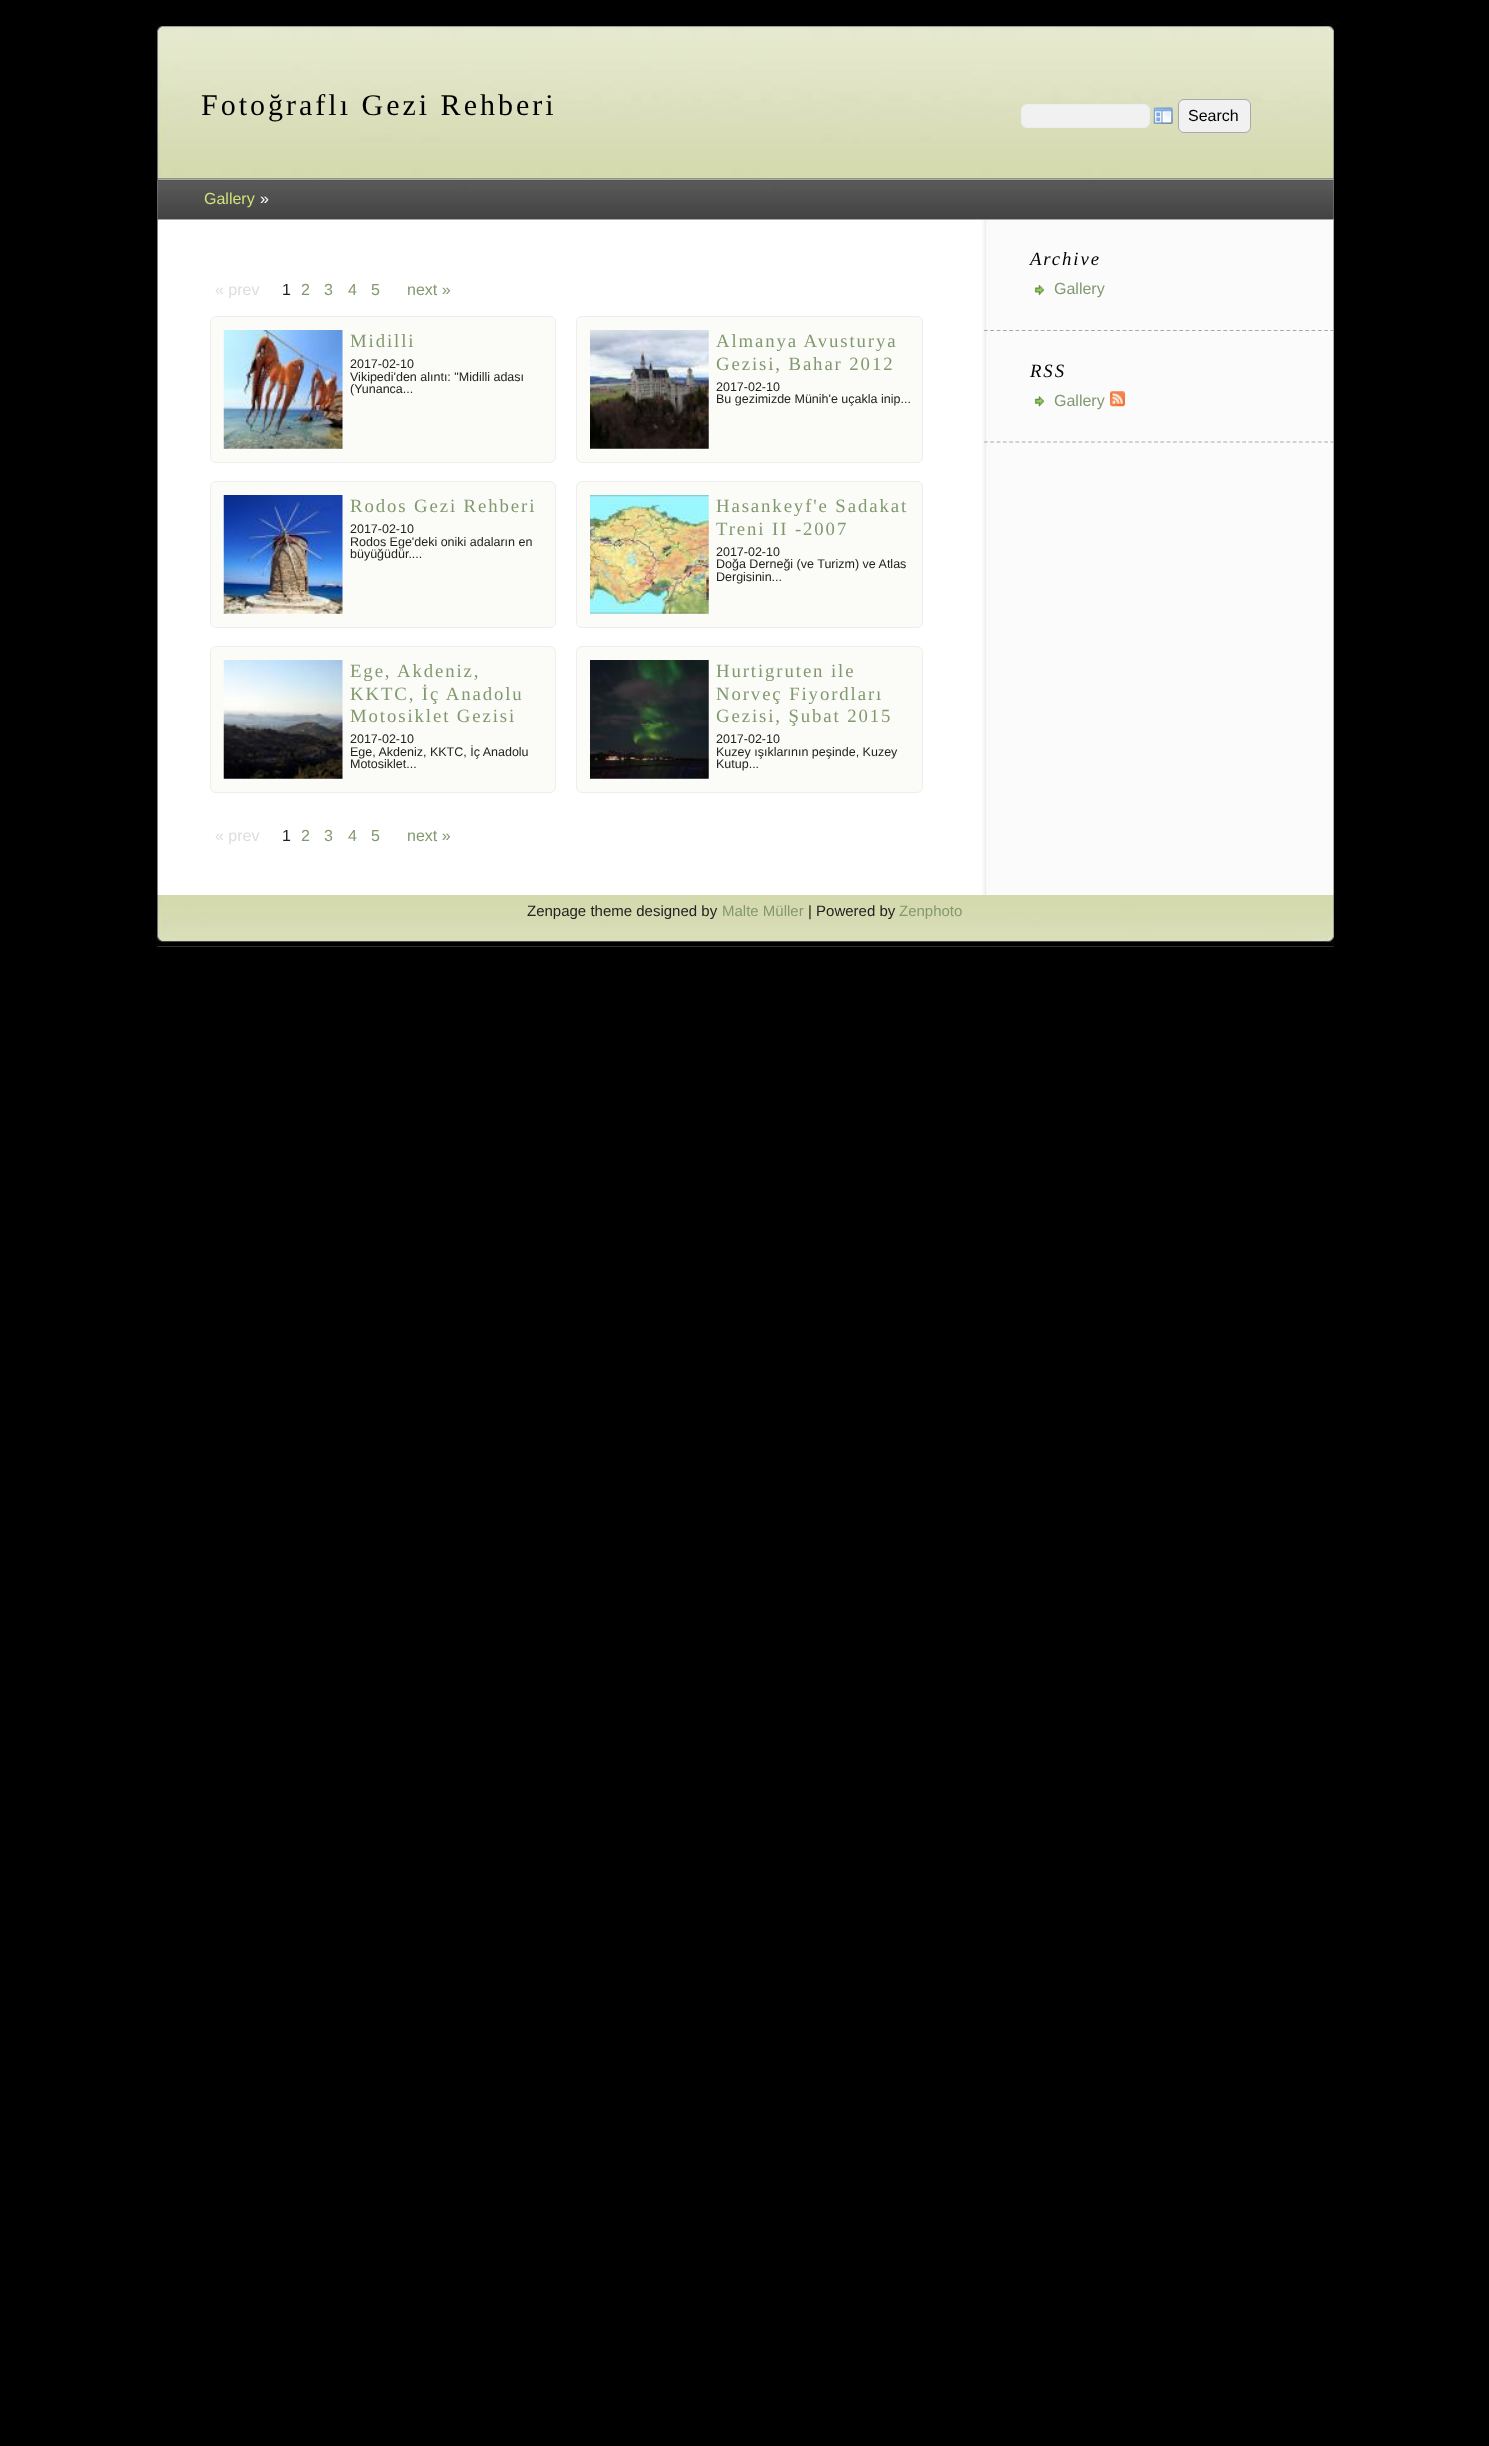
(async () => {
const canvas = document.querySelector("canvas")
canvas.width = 1489
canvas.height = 2446
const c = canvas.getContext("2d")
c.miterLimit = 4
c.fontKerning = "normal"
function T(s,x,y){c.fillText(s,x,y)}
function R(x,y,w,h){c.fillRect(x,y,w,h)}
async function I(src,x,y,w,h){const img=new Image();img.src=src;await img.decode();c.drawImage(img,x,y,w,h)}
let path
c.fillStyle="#000"
R(0,0,1489,2446)
await I("1.png",151,20,1188,159)
c.letterSpacing="3px"
c.font="30px Liberation Serif"
T("Fotoğraflı Gezi Rehberi",201,115)
c.fillStyle="#f1f1f1"
c.beginPath()
c.roundRect(1021.5,104.5,128,23,5.5)
c.fill()
c.strokeStyle="#e7f0f5"
c.stroke()
await I("2.png",1153,107,20,17)
c.beginPath()
c.roundRect(1178.5,99.5,72,33,5.5)
c.fill()
c.strokeStyle="#a9a9a9"
c.stroke()
c.letterSpacing="0px"
c.font="16px Liberation Sans"
c.fillStyle="#000"
T("Search",1188,121)
await I("3.png",157,178,1177,769)
await I("4.png",157,178,1177,42)
c.fillStyle="#a9a9a9"
R(158,179,1176,1)
R(158,219,1176,1)
c.fillStyle="#d1e079"
T("Gallery",204,204)
c.fillStyle="#fff"
T("»",260,204)
c.fillStyle="#ddd"
T("« prev",215,295)
c.fillStyle="#222"
T("1",282,295)
c.fillStyle="#82996f"
T("2",301,295)
T("3",324,295)
T("4",348,295)
T("5",371,295)
T("next »",407,295)
c.fillStyle="#fbfbf8"
c.beginPath()
c.roundRect(210.5,316.5,345,146,5.5)
c.fill()
c.strokeStyle="#eee"
c.stroke()
await I("5.png",223,330,120,119)
c.letterSpacing="1.9px"
c.font="18.75px Liberation Serif"
c.fillStyle="#82996f"
T("Midilli",350,347)
c.letterSpacing="0px"
c.font="12.5px Liberation Sans"
c.fillStyle="#222"
T("2017-02-10",350,368)
T("Vikipedi'den alıntı: \"Midilli adası",350,381)
T("(Yunanca...",350,393)
c.fillStyle="#fbfbf8"
c.beginPath()
c.roundRect(576.5,316.5,346,146,5.5)
c.fill()
c.stroke()
await I("6.png",590,330,119,119)
c.letterSpacing="1.9px"
c.font="18.75px Liberation Serif"
c.fillStyle="#82996f"
T("Almanya Avusturya",716,347)
T("Gezisi, Bahar 2012",716,370)
c.letterSpacing="0px"
c.font="12.5px Liberation Sans"
c.fillStyle="#222"
T("2017-02-10",716,391)
T("Bu gezimizde Münih'e uçakla inip...",716,403)
c.fillStyle="#fbfbf8"
c.beginPath()
c.roundRect(210.5,481.5,345,146,5.5)
c.fill()
c.stroke()
await I("7.png",223,495,120,119)
c.letterSpacing="1.9px"
c.font="18.75px Liberation Serif"
c.fillStyle="#82996f"
T("Rodos Gezi Rehberi",350,512)
c.letterSpacing="0px"
c.font="12.5px Liberation Sans"
c.fillStyle="#222"
T("2017-02-10",350,533)
T("Rodos Ege'deki oniki adaların en",350,546)
T("büyüğüdür....",350,558)
c.fillStyle="#fbfbf8"
c.beginPath()
c.roundRect(576.5,481.5,346,146,5.5)
c.fill()
c.stroke()
await I("8.png",590,495,119,119)
c.letterSpacing="1.9px"
c.font="18.75px Liberation Serif"
c.fillStyle="#82996f"
T("Hasankeyf'e Sadakat",716,512)
T("Treni II -2007",716,535)
c.letterSpacing="0px"
c.font="12.5px Liberation Sans"
c.fillStyle="#222"
T("2017-02-10",716,556)
T("Doğa Derneği (ve Turizm) ve Atlas",716,568)
T("Dergisinin...",716,581)
c.fillStyle="#fbfbf8"
c.beginPath()
c.roundRect(210.5,646.5,345,146,5.5)
c.fill()
c.stroke()
await I("9.png",223,660,120,119)
c.letterSpacing="1.9px"
c.font="18.75px Liberation Serif"
c.fillStyle="#82996f"
T("Ege, Akdeniz,",350,677)
T("KKTC, İç Anadolu",350,700)
T("Motosiklet Gezisi",350,722)
c.letterSpacing="0px"
c.font="12.5px Liberation Sans"
c.fillStyle="#222"
T("2017-02-10",350,743)
T("Ege, Akdeniz, KKTC, İç Anadolu",350,756)
T("Motosiklet...",350,768)
c.fillStyle="#fbfbf8"
c.beginPath()
c.roundRect(576.5,646.5,346,146,5.5)
c.fill()
c.stroke()
await I("10.png",590,660,119,119)
c.letterSpacing="1.9px"
c.font="18.75px Liberation Serif"
c.fillStyle="#82996f"
T("Hurtigruten ile",716,677)
T("Norveç Fiyordları",716,700)
T("Gezisi, Şubat 2015",716,722)
c.letterSpacing="0px"
c.font="12.5px Liberation Sans"
c.fillStyle="#222"
T("2017-02-10",716,743)
T("Kuzey ışıklarının peşinde, Kuzey",716,756)
T("Kutup...",716,768)
c.font="16px Liberation Sans"
c.fillStyle="#ddd"
T("« prev",215,841)
c.fillStyle="#222"
T("1",282,841)
c.fillStyle="#82996f"
T("2",301,841)
T("3",324,841)
T("4",348,841)
T("5",371,841)
T("next »",407,841)
path = new Path2D("M984 330.5h350")
c.strokeStyle="#a9a9a9"
c.lineWidth=1.2
c.setLineDash([3.75,2.55])
c.stroke(path)
c.letterSpacing="1.9px"
c.font="italic 18.75px Liberation Serif"
c.fillStyle="#000"
T("Archive",1030,265)
await I("11.png",1034,284,10,12)
c.letterSpacing="0px"
c.font="16px Liberation Sans"
c.fillStyle="#82996f"
T("Gallery",1054,294)
path = new Path2D("M984 442h350")
c.stroke(path)
c.letterSpacing="1.9px"
c.font="italic 18.75px Liberation Serif"
c.fillStyle="#000"
T("RSS",1030,377)
await I("12.png",1034,396,10,11)
c.letterSpacing="0px"
c.font="16px Liberation Sans"
c.fillStyle="#82996f"
T("Gallery",1054,406)
await I("13.png",1110,391,15,16)
await I("14.png",151,895,1188,52)
c.font="15px Liberation Sans"
c.fillStyle="#222"
T("Zenpage theme designed by",527,916)
c.fillStyle="#82996f"
T("Malte Müller",722,916)
c.fillStyle="#222"
T("| Powered by",808,916)
c.fillStyle="#82996f"
T("Zenphoto",899,916)
})()
